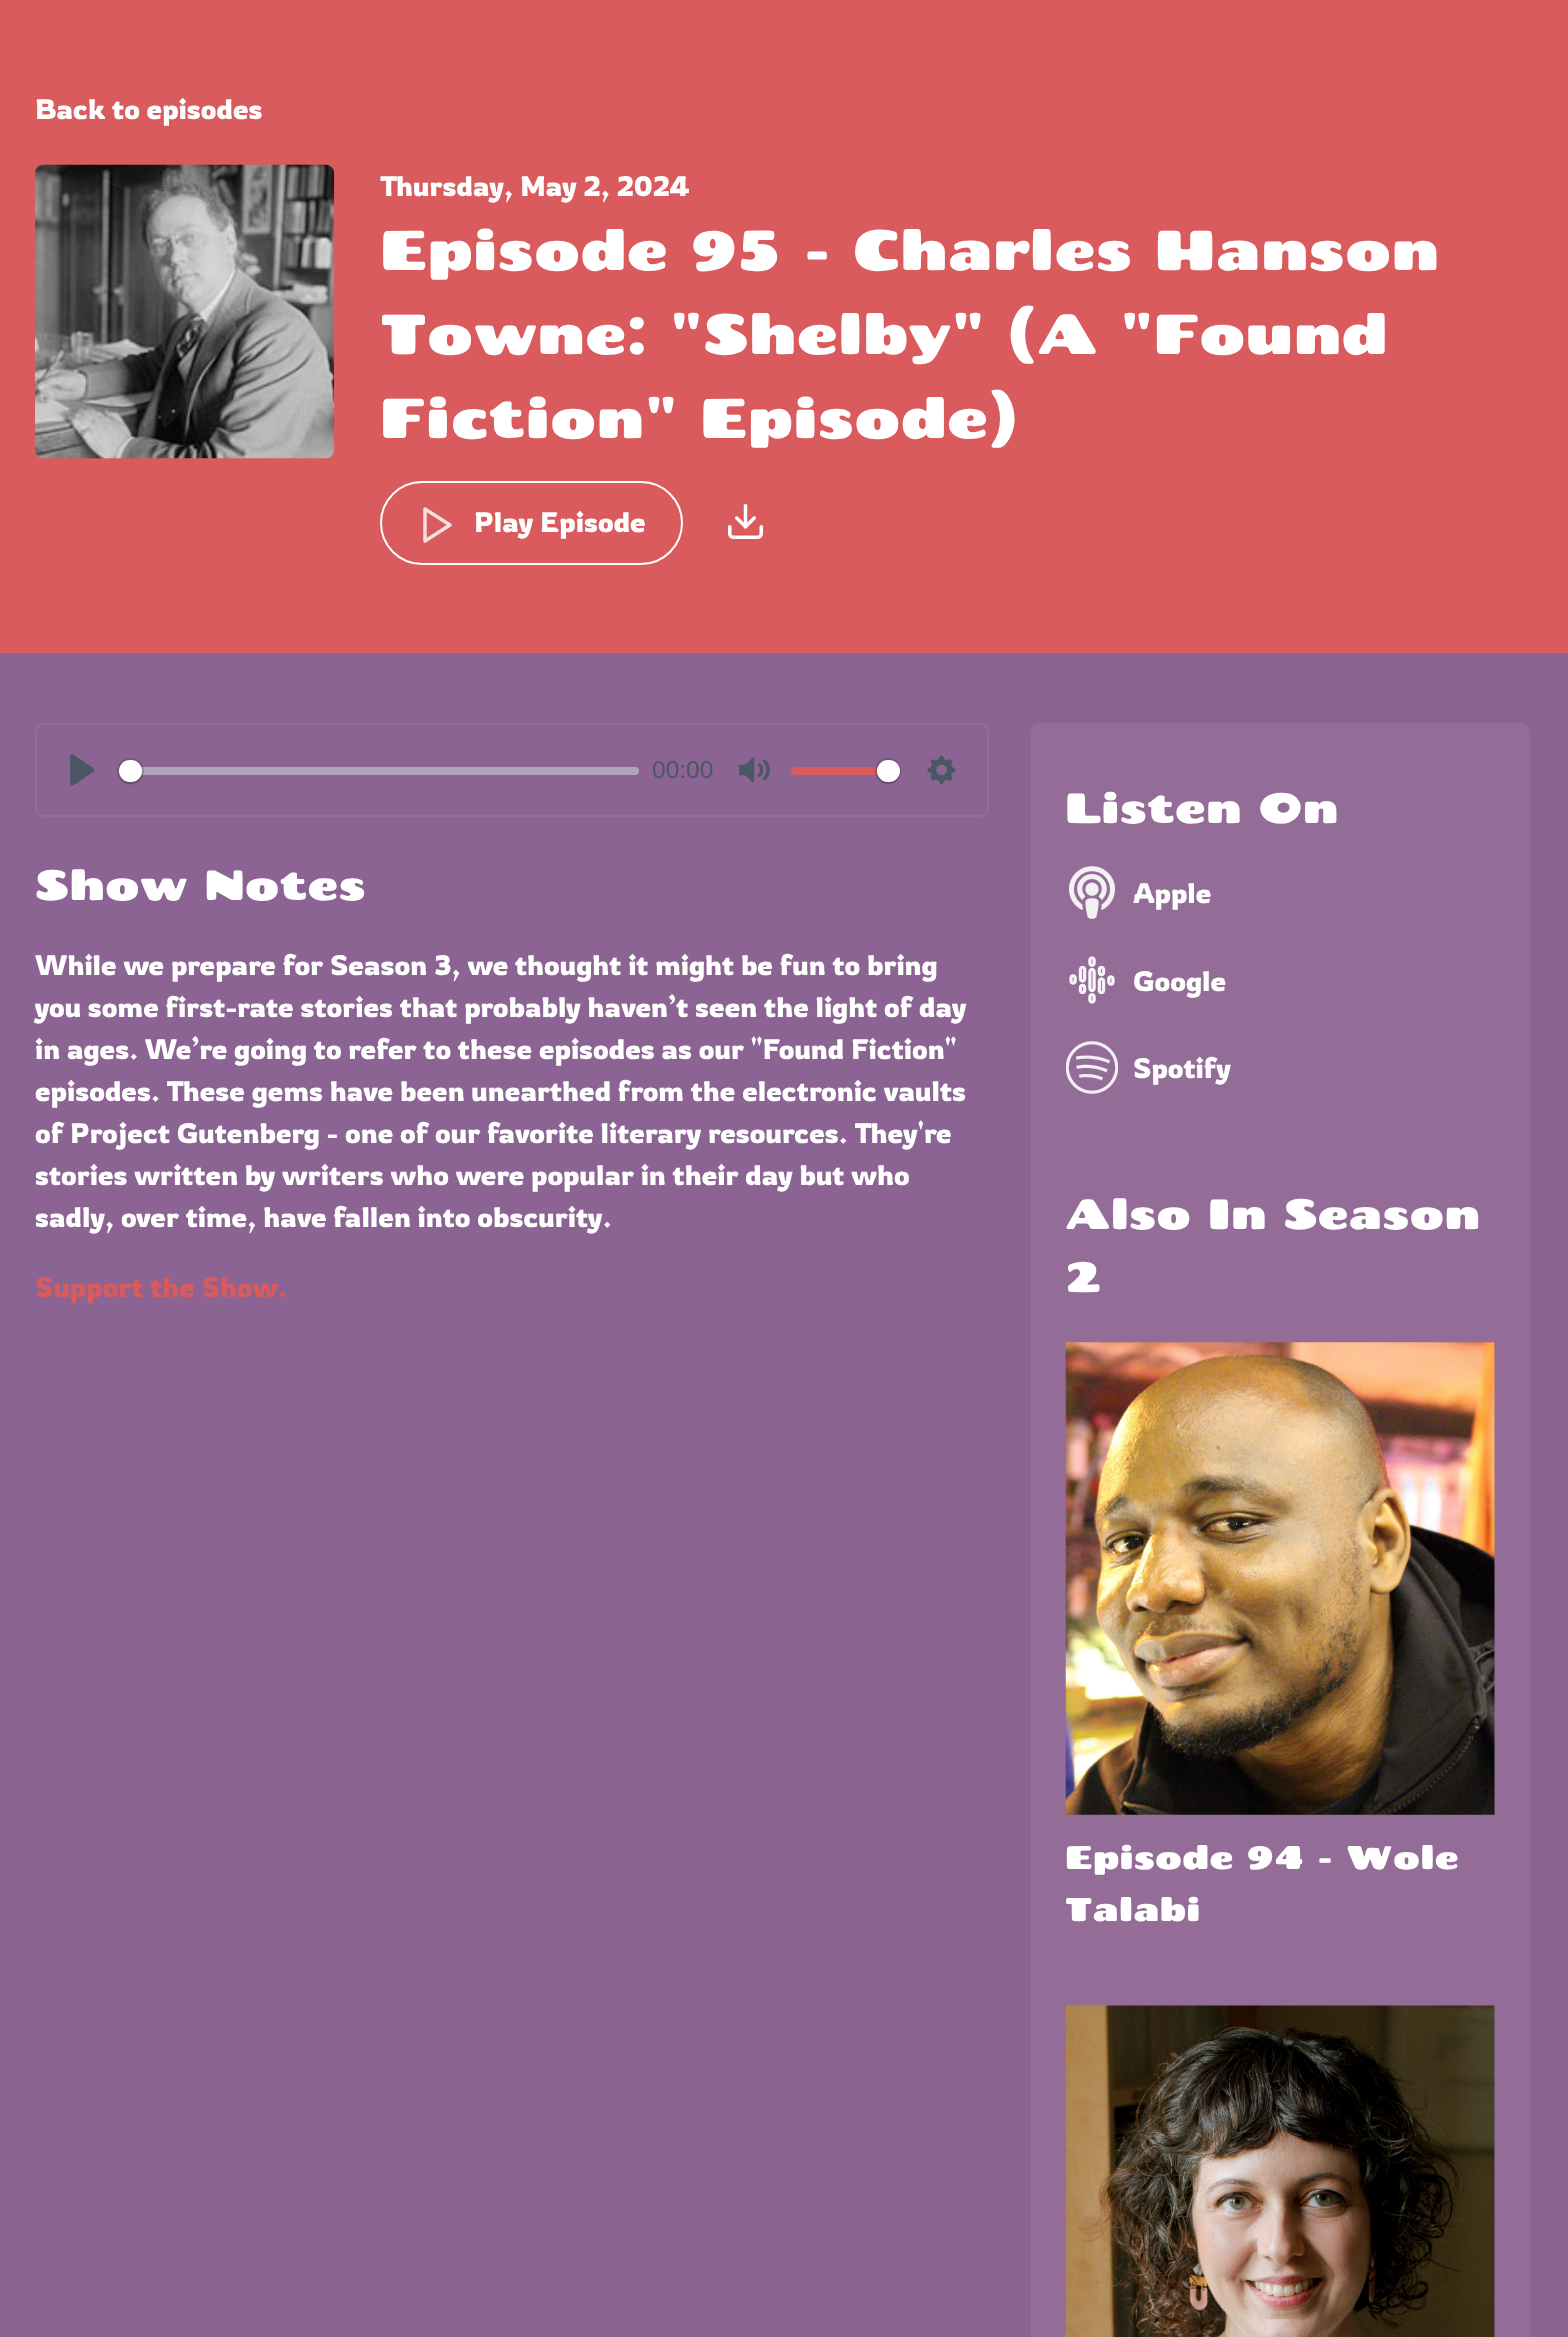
(async () => {
const canvas = document.querySelector("canvas")
canvas.width = 1568
canvas.height = 2337
const c = canvas.getContext("2d")
c.miterLimit = 4
c.fontKerning = "normal"
function T(s,x,y){c.fillText(s,x,y)}
function R(x,y,w,h){c.fillRect(x,y,w,h)}
function Q(x,y,w,h,r){c.beginPath();c.roundRect(x,y,w,h,r);c.fill()}
async function I(src,x,y,w,h){const img=new Image();img.src=src;await img.decode();c.drawImage(img,x,y,w,h)}
let path
c.fillStyle="#8c6493"
R(0,0,1568,2337)
c.fillStyle="#d95b5d"
R(0,0,1568,653)
c.font="28px Rowdies"
c.fillStyle="#fff"
T("Back to episodes",35,119)
await I("1.png",35,164,300,295)
T("Thursday, May 2, 2024",380,196)
c.font="56px Chango"
T("Episode 95 - Charles Hanson",380,270)
T("Towne: \"Shelby\" (A \"Found",380,354)
T("Fiction\" Episode)",380,438)
c.beginPath()
c.roundRect(381,482,301,82,41)
c.strokeStyle="#fff"
c.lineWidth=2
c.stroke()
path = new Path2D("M425 509l25 16l-25 16z")
c.strokeStyle="#f7dedf"
c.lineWidth=3.5
c.lineCap="round"
c.lineJoin="round"
c.stroke(path)
c.font="28px Rowdies"
T("Play Episode",474,532)
await I("2.png",728,504,35,35)
c.beginPath()
c.roundRect(36,724,952,92,8)
c.strokeStyle="#8f7194"
c.lineWidth=2
c.lineJoin="miter"
c.stroke()
await I("3.png",70,754,25,32)
c.fillStyle="#c1c9d1a8"
Q(119,767,520,8,4)
c.beginPath()
c.roundRect(118,759,25,24,12)
c.strokeStyle="#23292f33"
c.stroke()
c.fillStyle="#00000026"
c.filter="blur(1px)"
c.beginPath()
c.roundRect(119,761,23,23,11.5)
c.fill()
c.filter="none"
c.fillStyle="#fff"
Q(119,760,23,22,11)
c.font="24.5px Liberation Sans"
c.fillStyle="#4a5764"
T("00:00",652,778)
await I("4.png",739,757,31,26)
c.fillStyle="#d95b5d"
Q(791,767,109,8,4)
c.beginPath()
c.arc(888,771,12,0,7)
c.stroke()
c.fillStyle="#00000026"
c.filter="blur(1px)"
c.beginPath()
c.roundRect(877,761,23,23,11.5)
c.fill()
c.filter="none"
c.fillStyle="#fff"
Q(877,760,23,22,11)
await I("5.png",927,756,29,28)
c.font="42px Chango"
T("Show Notes",35,900)
c.font="28px Rowdies"
T("While we prepare for Season 3, we thought it might be fun to bring",35,975)
T("you some first-rate stories that probably haven’t seen the light of day",35,1017)
T("in ages. We’re going to refer to these episodes as our \"Found Fiction\"",35,1059)
T("episodes. These gems have been unearthed from the electronic vaults",35,1101)
T("of Project Gutenberg - one of our favorite literary resources. They're",35,1143)
T("stories written by writers who were popular in their day but who",35,1185)
T("sadly, over time, have fallen into obscurity.",35,1227)
c.fillStyle="#d95b5d"
T("Support the Show.",35,1297)
c.fillStyle="#936d98"
Q(1031,723,499,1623,9)
c.font="42px Chango"
c.fillStyle="#fff"
T("Listen On",1065,823)
await I("6.png",1069,866,46,53)
c.font="28px Rowdies"
T("Apple",1133,903)
await I("7.png",1069,956,46,48)
T("Google",1133,991)
await I("8.png",1066,1041,52,53)
T("Spotify",1133,1078)
c.font="42px Chango"
T("Also In Season",1065,1229)
T("2",1065,1292)
await I("9.png",1065,1342,430,473)
c.font="32.75px Chango"
T("Episode 94 - Wole",1065,1869)
T("Talabi",1065,1921)
await I("10.png",1065,2005,430,332)
})()
